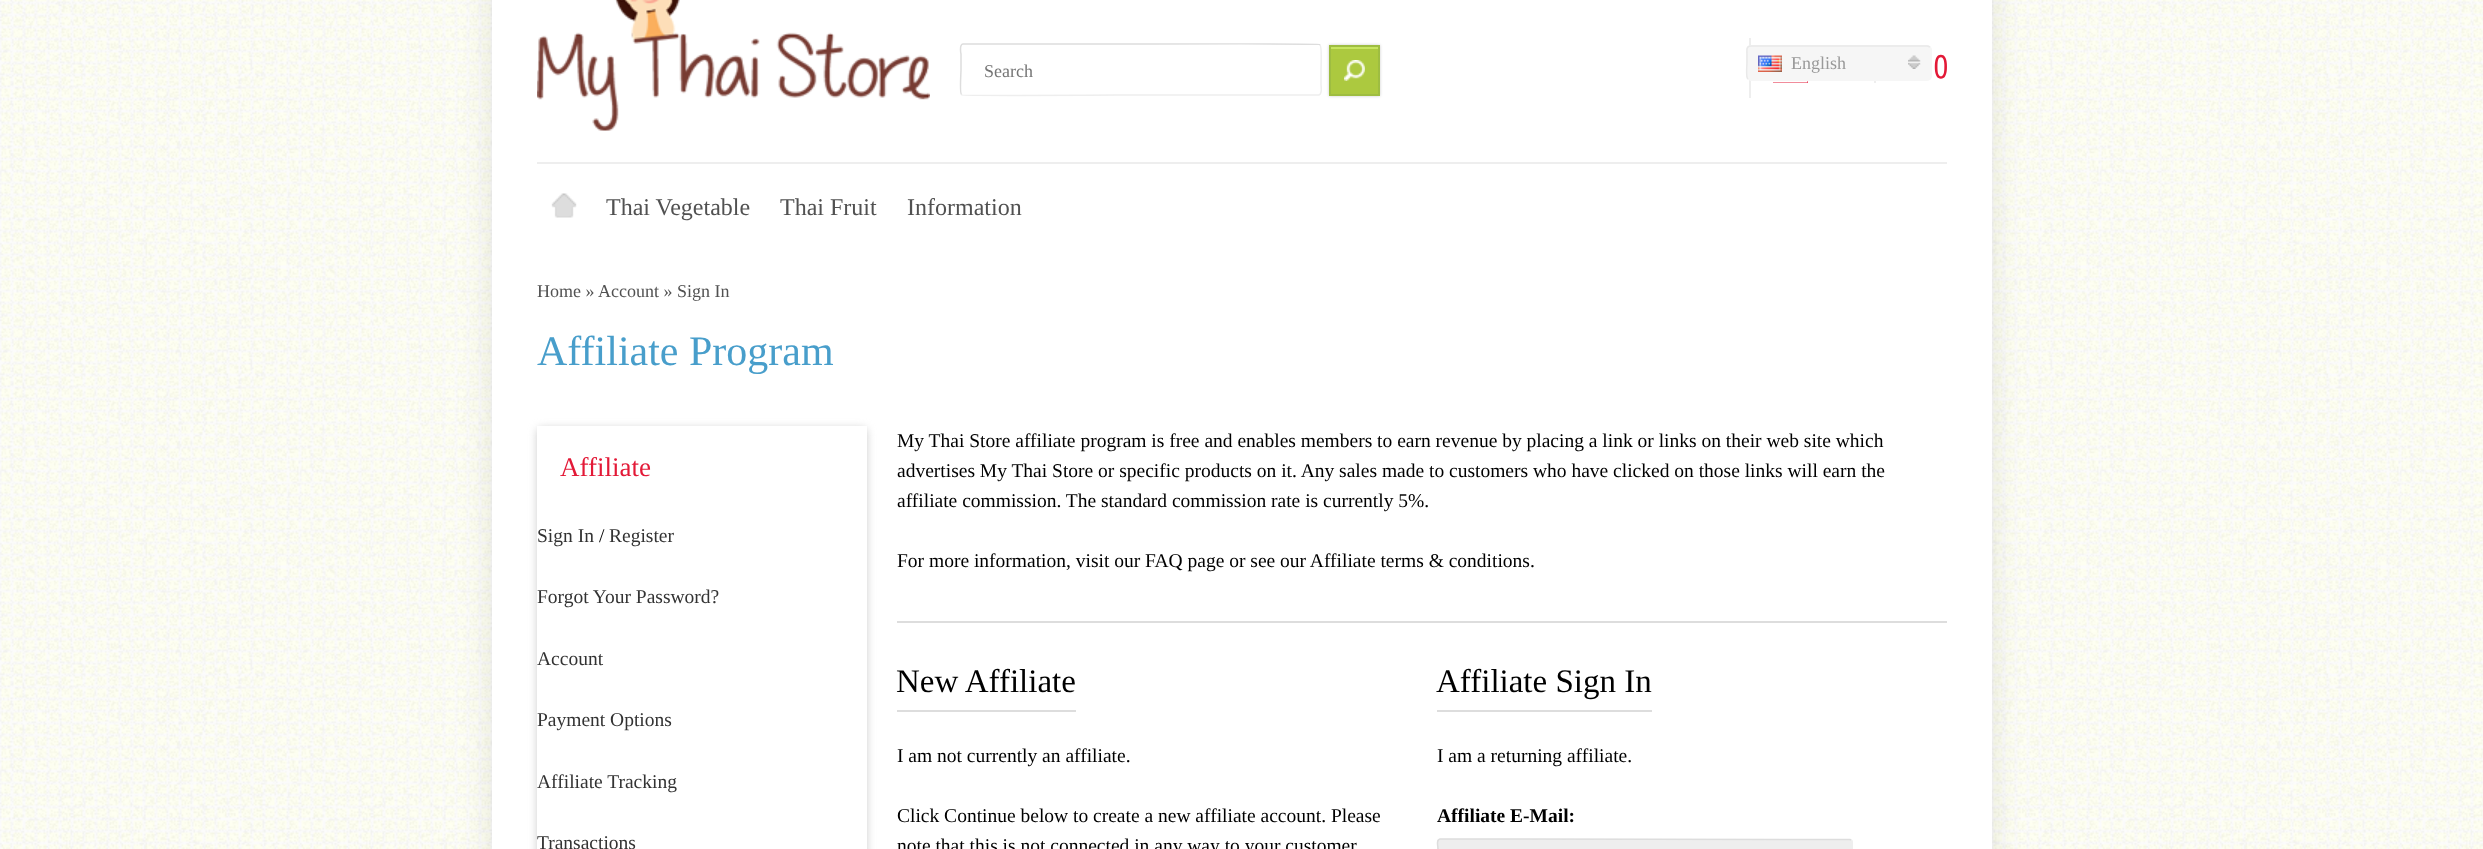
<svg xmlns="http://www.w3.org/2000/svg" width="2483" height="849" viewBox="0 0 2483 849">
  <style>
    .t1 { font: 18px Liberation Serif; fill: #757575; }
    .t2 { font: 18px Liberation Serif; fill: #999; }
    .t3 { font: 500 32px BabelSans; fill: #e31937; }
    .t4 { font: 24px Liberation Serif; fill: #515151; }
    .t5 { font: 18px Liberation Serif; fill: #515151; }
    .t6 { font: 42px Liberation Serif; fill: #489ecb; }
    .t7 { font: 27px Liberation Serif; fill: #e31937; }
    .t8 { font: 19.5px Liberation Serif; fill: #333; }
    .t9 { font: 19.5px Liberation Serif; fill: #000; }
    .t10 { font: 33px Liberation Serif; fill: #000; }
    .t11 { font: bold 19.5px Liberation Serif; fill: #000; }
  </style>
  <rect width="100%" height="100%" fill="#fff"/>
  <image x="0" y="0" width="2483" height="849" href="images/1.png"/>
  <rect x="492" y="-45" width="1500" height="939" fill="#0000001a" filter="blur(15px)"/>
  <rect x="492" y="0" width="1500" height="849" fill="#fff"/>
  <image x="537" y="0" width="393" height="131" href="images/2.png"/>
  <path d="M1320 45C1322 46.5 1321 66.5 1321 70V85C1321 85.5 1322.5 95 1318.5 95H1141C1127 95 963.5 96 962 95L961.5 94.5" fill="none" stroke="#eee" stroke-width="1.5"/>
  <path d="M961.5 94.5C959.5 93 961 73 961 70V54C961 54 959 44.5 963 44H1141C1154.5 44 1318 43.5 1319.5 44.5L1320 45" fill="none" stroke="#ddd" stroke-width="1.5"/>
  <text x="984" y="77" class="t1">Search</text>
  <rect x="1329" y="45" width="51" height="51" fill="#00000033" filter="blur(1.5px)"/>
  <rect x="1331" y="49" width="47" height="45" fill="#acc93f"/>
  <image x="1344" y="60" width="21" height="21" href="images/3.png"/>
  <rect x="1331" y="47" width="48" height="2" fill="#c7e561"/>
  <rect x="1330" y="46" width="49" height="49" fill="none" stroke="#9ebd41" stroke-width="2"/>
  <rect x="1749" y="38" width="2" height="60" fill="#eee"/>
  <rect x="1746" y="45" width="186" height="36" rx="5" fill="#f6f6f6"/>
  <image x="1908" y="55" width="13" height="14" href="images/4.png"/>
  <path d="M1748 79C1745.5 77 1747 66 1747 63V54C1747 51 1746 46 1750.5 46H1927.5L1930 47" fill="none" stroke="#e9e9e9" stroke-width="1.5"/>
  <image x="1758" y="55" width="24" height="17" href="images/5.png"/>
  <text x="1791" y="69" class="t2">English</text>
  <text x="1934" y="78" class="t3">0</text>
  <rect x="1773" y="81" width="35" height="2" fill="#e31937"/>
  <image x="1773" y="81" width="35" height="2" href="images/6.png"/>
  <rect x="1874" y="81" width="2" height="2" fill="#eee"/>
  <rect x="537" y="162" width="1410" height="2" fill="#eee"/>
  <rect x="551" y="193" width="26" height="25" fill="#ddd"/>
  <image x="537" y="183" width="54" height="48" href="images/7.png"/>
  <text x="606" y="215" class="t4">Thai Vegetable</text>
  <text x="780" y="215" class="t4">Thai Fruit</text>
  <text x="907" y="215" class="t4">Information</text>
  <text x="537" y="297" class="t5">Home »</text>
  <text x="598" y="297" class="t5">Account » Sign In</text>
  <text x="537" y="365" class="t6">Affiliate Program</text>
  <rect x="537" y="428" width="330" height="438" rx="5" fill="#ccc" filter="blur(4px)"/>
  <rect x="537" y="426" width="330" height="423" fill="#fff"/>
  <text x="560" y="476" class="t7">Affiliate</text>
  <text x="537" y="542" class="t8">Sign In</text>
  <text x="599" y="542" class="t9">/</text>
  <text x="609" y="542" class="t8">Register</text>
  <text x="537" y="603" class="t8">Forgot Your Password?</text>
  <text x="537" y="665" class="t8">Account</text>
  <text x="537" y="726" class="t8">Payment Options</text>
  <text x="537" y="788" class="t8">Affiliate Tracking</text>
  <text x="537" y="849" class="t8">Transactions</text>
  <text x="897" y="447" class="t9">My Thai Store affiliate program is free and enables members to earn revenue by placing a link or links on their web site which</text>
  <text x="897" y="477" class="t9">advertises My Thai Store or specific products on it. Any sales made to customers who have clicked on those links will earn the</text>
  <text x="897" y="507" class="t9">affiliate commission. The standard commission rate is currently 5%.</text>
  <text x="897" y="567" class="t9">For more information, visit our FAQ page or see our Affiliate terms &amp; conditions.</text>
  <rect x="897" y="621" width="1050" height="2" fill="#ddd"/>
  <rect x="897" y="710" width="179" height="2" fill="#ddd"/>
  <text x="896" y="692" class="t10">New Affiliate</text>
  <text x="897" y="762" class="t9">I am not currently an affiliate.</text>
  <text x="897" y="822" class="t9">Click Continue below to create a new affiliate account. Please</text>
  <text x="897" y="852" class="t9">note that this is not connected in any way to your customer</text>
  <rect x="1437" y="710" width="215" height="2" fill="#ddd"/>
  <text x="1436" y="692" class="t10">Affiliate Sign In</text>
  <text x="1437" y="762" class="t9">I am a returning affiliate.</text>
  <text x="1437" y="822" class="t11">Affiliate E-Mail:</text>
  <rect x="1437" y="839" width="416" height="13" rx="3" fill="#eee"/>
  <path d="M1438.5 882C1436.5 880.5 1438 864 1438 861V848C1438 847 1436 839.5 1440 839L1850 839.5L1851 840" fill="none" stroke="#ddd" stroke-width="1.5"/>
</svg>
